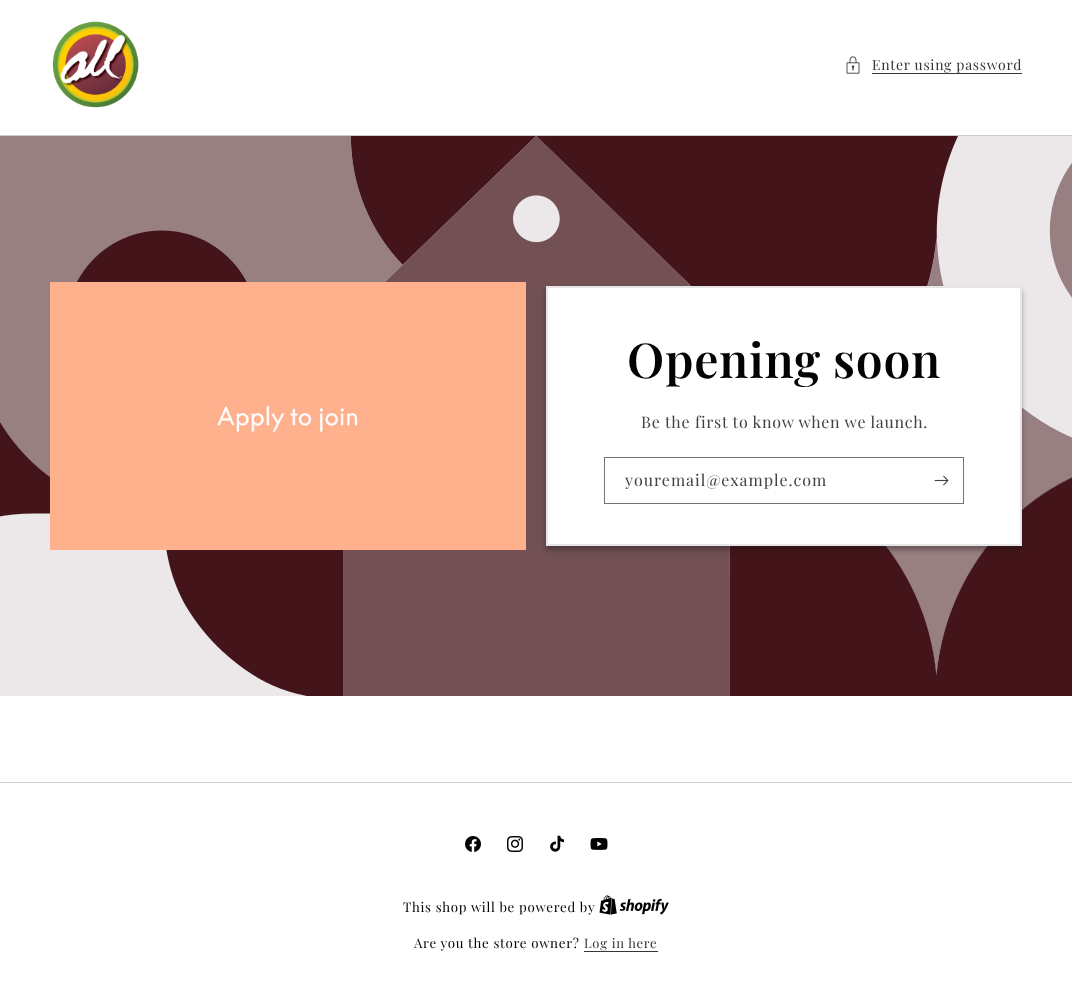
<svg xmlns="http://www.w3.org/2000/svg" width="1072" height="995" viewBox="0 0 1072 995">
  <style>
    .t1 { font: 14px Playfair Display; letter-spacing: 0.7px; fill: #363636; }
    .t2 { font: 600 48px Playfair Display; letter-spacing: 0.75px; fill: #030303; }
    .t3 { font: 16px Playfair Display; letter-spacing: 0.7px; fill: #424242; }
    .t4 { font: 16px Playfair Display; letter-spacing: 1px; fill: #424242; }
    .t5 { font: 13.3px Playfair Display; letter-spacing: 0.7px; fill: #030303; }
    .t6 { font: 13px Playfair Display; letter-spacing: 0.7px; fill: #363636; }
  </style>
  <defs>
    <clipPath id="clip1"><path d="M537 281H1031V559H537ZM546 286H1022V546H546Z" clip-rule="evenodd"/></clipPath>
  </defs>
  <rect width="100%" height="100%" fill="#fff"/>
  <image x="52" y="21" width="87" height="87" href="images/1.png"/>
  <image x="846" y="56" width="14" height="18" href="images/2.png"/>
  <text x="872" y="70" class="t1">Enter using password</text>
  <rect x="872" y="73" width="150" height="1" fill="#363636"/>
  <rect x="0" y="135" width="1072" height="1" fill="#cdcdcd"/>
  <image x="0" y="136" width="1072" height="560" href="images/3.png"/>
  <image x="50" y="282" width="476" height="268" href="images/4.png"/>
  <rect x="547" y="287" width="474" height="258" fill="#fff" stroke="#e6e6e6" stroke-width="2"/>
  <g clip-path="url(#clip1)">
    <rect x="546" y="290" width="476" height="260" fill="#12121259" filter="blur(2.5px)"/>
  </g>
  <text x="627" y="378" class="t2">Opening soon</text>
  <text x="641" y="428" class="t3">Be the first to know when we launch.</text>
  <rect x="604.5" y="457.5" width="359" height="46" fill="none" stroke="#747474"/>
  <text x="625" y="486" class="t4">youremail@example.com</text>
  <image x="934" y="475" width="15" height="11" href="images/5.png"/>
  <rect x="0" y="782" width="1072" height="1" fill="#cdcdcd"/>
  <image x="465" y="836" width="16" height="16" href="images/6.png"/>
  <image x="507" y="836" width="16" height="16" href="images/7.png"/>
  <image x="550" y="835" width="15" height="17" href="images/8.png"/>
  <image x="590" y="838" width="18" height="12" href="images/9.png"/>
  <text x="403" y="912" class="t5">This shop will be powered by</text>
  <image x="599" y="895" width="70" height="20" href="images/10.png"/>
  <text x="414" y="948" class="t5">Are you the store owner?</text>
  <text x="584" y="948" class="t6">Log in here</text>
  <rect x="584" y="951" width="74" height="1" fill="#363636"/>
</svg>
